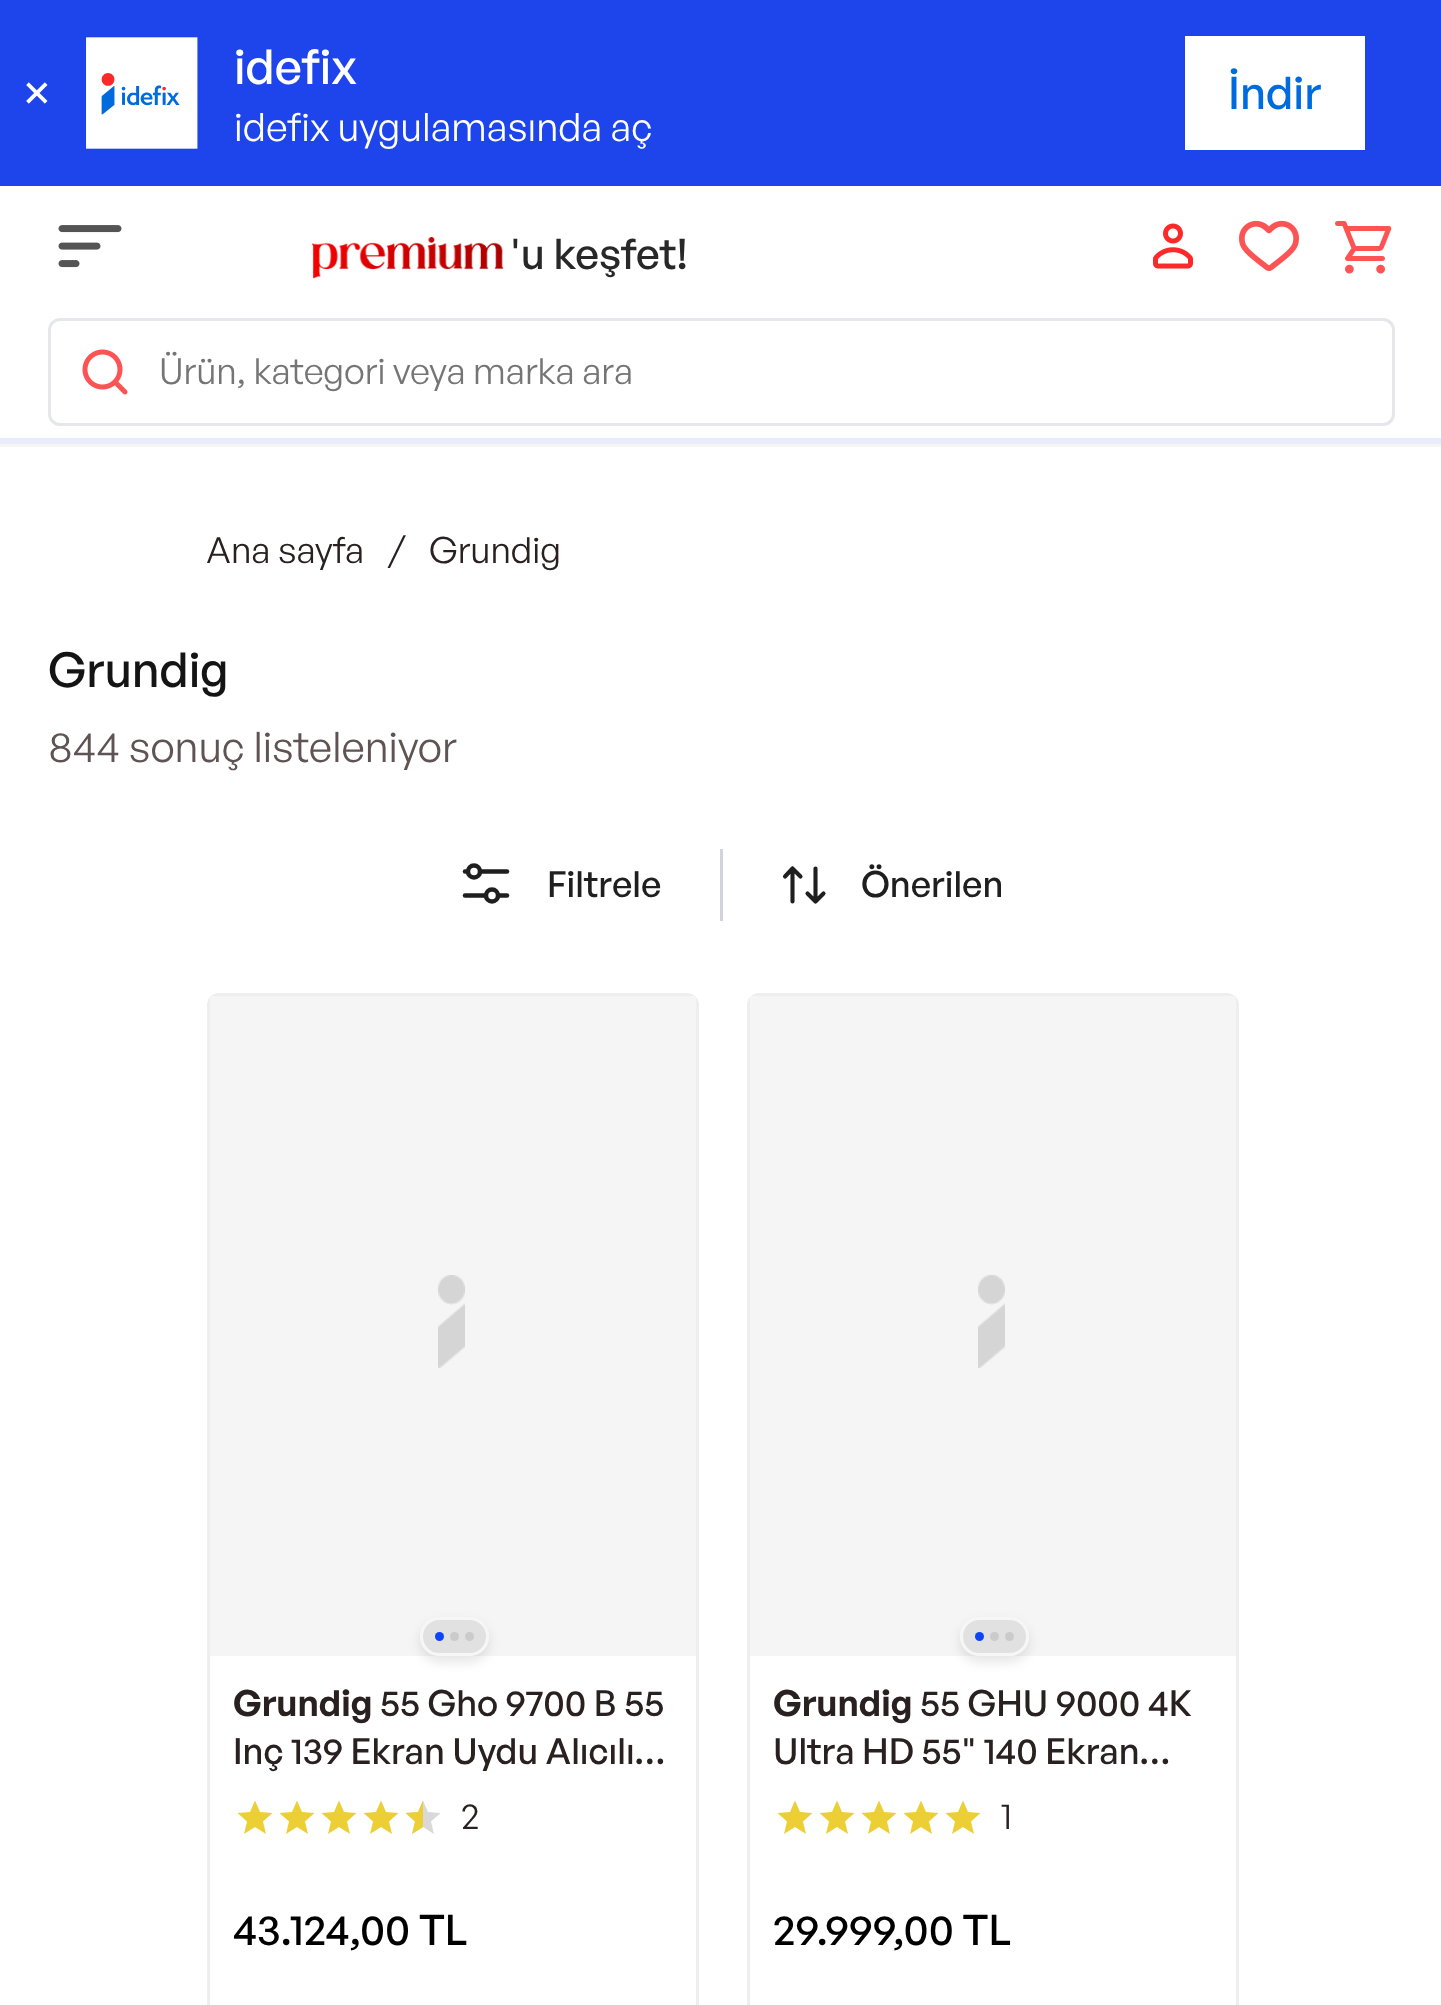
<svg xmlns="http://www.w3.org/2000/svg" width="1441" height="2005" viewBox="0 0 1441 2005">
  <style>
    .t1 { font: 500 48px General Sans; fill: #fff; }
    .t2 { font: 39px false; fill: #fff; }
    .t3 { font: 500 45px General Sans; fill: #006bdc; }
    .t4 { font: 500 42px General Sans; fill: #282828; }
    .t5 { font: 36px false; fill: #757575; }
    .t6 { font: 36px false; fill: #292020; }
    .t7 { font: 500 48px General Sans; fill: #141414; }
    .t8 { font: 42px false; fill: #5f5353; }
    .t9 { font: 500 36px General Sans; fill: #1f1f1f; }
    .t10 { font: 600 36px General Sans; fill: #292020; }
    .t11 { font: 500 36px General Sans; fill: #292020; }
    .t12 { font: 500 42px General Sans; fill: #000; }
  </style>
  <defs>
    <clipPath id="clip1"><path d="M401 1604H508V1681H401ZM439.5 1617H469.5C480.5 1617 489 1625.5 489 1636.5C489 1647.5 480.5 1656 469.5 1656H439.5C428.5 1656 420 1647.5 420 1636.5C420 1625.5 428.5 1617 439.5 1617Z" clip-rule="evenodd"/></clipPath>
    <clipPath id="clip2"><rect x="234" y="1680" width="438" height="96"/></clipPath>
    <clipPath id="clip3"><rect x="402" y="1797" width="21" height="42"/></clipPath>
    <clipPath id="clip4"><path d="M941 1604H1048V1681H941ZM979.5 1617H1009.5C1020.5 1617 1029 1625.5 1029 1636.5C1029 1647.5 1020.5 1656 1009.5 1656H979.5C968.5 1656 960 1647.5 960 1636.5C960 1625.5 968.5 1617 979.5 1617Z" clip-rule="evenodd"/></clipPath>
    <clipPath id="clip5"><rect x="774" y="1680" width="438" height="96"/></clipPath>
  </defs>
  <rect width="100%" height="100%" fill="#fff"/>
  <rect x="0" y="0" width="1441" height="186" fill="#1e44ec"/>
  <image x="26" y="82" width="22" height="22" href="images/1.png"/>
  <image x="85" y="36" width="114" height="114" href="images/2.png"/>
  <text x="234" y="84" class="t1">idefix</text>
  <text x="234" y="141" class="t2">idefix uygulamasında aç</text>
  <rect x="1185" y="36" width="180" height="114" fill="#fff"/>
  <text x="1228" y="109" class="t3">İndir</text>
  <rect x="0" y="444" width="1441" height="3" fill="#f5f5f5"/>
  <image x="58" y="225" width="64" height="43" href="images/3.png"/>
  <image x="312" y="237" width="192" height="42" href="images/4.png"/>
  <text x="510" y="269" class="t4">'u keşfet!</text>
  <image x="1153" y="223" width="40" height="46" href="images/5.png"/>
  <image x="1239" y="220" width="60" height="51" href="images/6.png"/>
  <image x="1335" y="221" width="57" height="53" href="images/7.png"/>
  <rect x="49.5" y="319.5" width="1344" height="105" rx="10.5" fill="none" stroke="#e5e7eb" stroke-width="3"/>
  <image x="82" y="349" width="46" height="46" href="images/8.png"/>
  <text x="159" y="384" class="t5">Ürün, kategori veya marka ara</text>
  <rect x="0" y="438" width="1441" height="6" fill="#e7ecfe"/>
  <text x="206" y="563" class="t6">Ana sayfa</text>
  <text x="388" y="561" class="t6">/</text>
  <text x="429" y="563" class="t6">Grundig</text>
  <text x="48" y="687" class="t7">Grundig</text>
  <text x="48" y="762" class="t8">844 sonuç listeleniyor</text>
  <path d="M465 871.5H507" fill="none" stroke="#1f1f1f" stroke-width="4.5" stroke-linecap="round"/>
  <circle cx="474" cy="871.5" r="6" fill="#fff" stroke="#1f1f1f" stroke-width="4.5"/>
  <path d="M465 895.5H507" fill="none" stroke="#1f1f1f" stroke-width="4.5" stroke-linecap="round"/>
  <circle cx="492" cy="895.5" r="6" fill="#fff" stroke="#1f1f1f" stroke-width="4.5"/>
  <text x="547" y="897" class="t9">Filtrele</text>
  <rect x="720" y="849" width="3" height="72" fill="#d1d5db"/>
  <path d="M807.5 893.5L815.5 901.5M815.5 901.5L823.5 893.5M815.5 901.5V868.5M800.5 876.5L792.5 868.5M792.5 868.5L785 876.5M792.5 868.5V901.5" fill="none" stroke="#1f1f1f" stroke-width="4.1" stroke-linecap="round" stroke-linejoin="round"/>
  <text x="861" y="897" class="t9">Önerilen</text>
  <rect x="208.5" y="994.5" width="489" height="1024" rx="10.5" fill="none" stroke="#eee" stroke-width="3"/>
  <rect x="210" y="996" width="486" height="660" fill="#f5f5f5"/>
  <image x="438" y="1275" width="27" height="93" href="images/9.png"/>
  <g clip-path="url(#clip1)">
    <rect x="420" y="1623" width="69" height="39" rx="19.5" fill="#0000001a" filter="blur(6px)"/>
  </g>
  <rect x="421.5" y="1618.5" width="66" height="36" rx="18" fill="#00000014" stroke="#f6f6f6" stroke-width="3"/>
  <circle cx="439.5" cy="1636.5" r="4.5" fill="#0c45f5"/>
  <circle cx="454.5" cy="1636.5" r="4.5" fill="#cbcbcb"/>
  <circle cx="469.5" cy="1636.5" r="4.5" fill="#cbcbcb"/>
  <g clip-path="url(#clip2)">
    <text x="233" y="1716" class="t10">Grundig</text>
  </g>
  <text x="380" y="1716" class="t11">55 Gho 9700 B 55</text>
  <text x="233" y="1764" class="t11">Inç 139 Ekran Uydu Alıcılı…</text>
  <path d="M255 1827L266 1834L263 1821.5L272.5 1813L260 1812L255 1800.5L250 1812L237.5 1813L247 1821.5L244 1834Z" fill="#eccf34"/>
  <path d="M297 1827L308 1834L305 1821.5L314.5 1813L302 1812L297 1800.5L292 1812L279.5 1813L289 1821.5L286 1834Z" fill="#eccf34"/>
  <path d="M339 1827L350 1834L347 1821.5L356.5 1813L344 1812L339 1800.5L334 1812L321.5 1813L331 1821.5L328 1834Z" fill="#eccf34"/>
  <path d="M381 1827L392 1834L389 1821.5L398.5 1813L386 1812L381 1800.5L376 1812L363.5 1813L373 1821.5L370 1834Z" fill="#eccf34"/>
  <path d="M423 1827L434 1834L431 1821.5L440.5 1813L428 1812L423 1800.5L418 1812L405.5 1813L415 1821.5L412 1834Z" fill="#d9d9d9"/>
  <g clip-path="url(#clip3)">
    <path d="M423 1827L434 1834L431 1821.5L440.5 1813L428 1812L423 1800.5L418 1812L405.5 1813L415 1821.5L412 1834Z" fill="#eccf34"/>
  </g>
  <text x="461" y="1829" class="t6">2</text>
  <text x="233" y="1945" class="t12">43.124,00 TL</text>
  <rect x="748.5" y="994.5" width="489" height="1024" rx="10.5" fill="none" stroke="#eee" stroke-width="3"/>
  <rect x="750" y="996" width="486" height="660" fill="#f5f5f5"/>
  <image x="978" y="1275" width="27" height="93" href="images/9.png"/>
  <g clip-path="url(#clip4)">
    <rect x="960" y="1623" width="69" height="39" rx="19.5" fill="#0000001a" filter="blur(6px)"/>
  </g>
  <rect x="961.5" y="1618.5" width="66" height="36" rx="18" fill="#00000014" stroke="#f6f6f6" stroke-width="3"/>
  <circle cx="979.5" cy="1636.5" r="4.5" fill="#0c45f5"/>
  <circle cx="994.5" cy="1636.5" r="4.5" fill="#cbcbcb"/>
  <circle cx="1009.5" cy="1636.5" r="4.5" fill="#cbcbcb"/>
  <g clip-path="url(#clip5)">
    <text x="773" y="1716" class="t10">Grundig</text>
  </g>
  <text x="920" y="1716" class="t11">55 GHU 9000 4K</text>
  <text x="773" y="1764" class="t11">Ultra HD 55" 140 Ekran…</text>
  <path d="M795 1827L806 1834L803 1821.5L812.5 1813L800 1812L795 1800.5L790 1812L777.5 1813L787 1821.5L784 1834Z" fill="#eccf34"/>
  <path d="M837 1827L848 1834L845 1821.5L854.5 1813L842 1812L837 1800.5L832 1812L819.5 1813L829 1821.5L826 1834Z" fill="#eccf34"/>
  <path d="M879 1827L890 1834L887 1821.5L896.5 1813L884 1812L879 1800.5L874 1812L861.5 1813L871 1821.5L868 1834Z" fill="#eccf34"/>
  <path d="M921 1827L932 1834L929 1821.5L938.5 1813L926 1812L921 1800.5L916 1812L903.5 1813L913 1821.5L910 1834Z" fill="#eccf34"/>
  <path d="M963 1827L974 1834L971 1821.5L980.5 1813L968 1812L963 1800.5L958 1812L945.5 1813L955 1821.5L952 1834Z" fill="#eccf34"/>
  <text x="1001" y="1829" class="t6">1</text>
  <text x="773" y="1945" class="t12">29.999,00 TL</text>
</svg>
